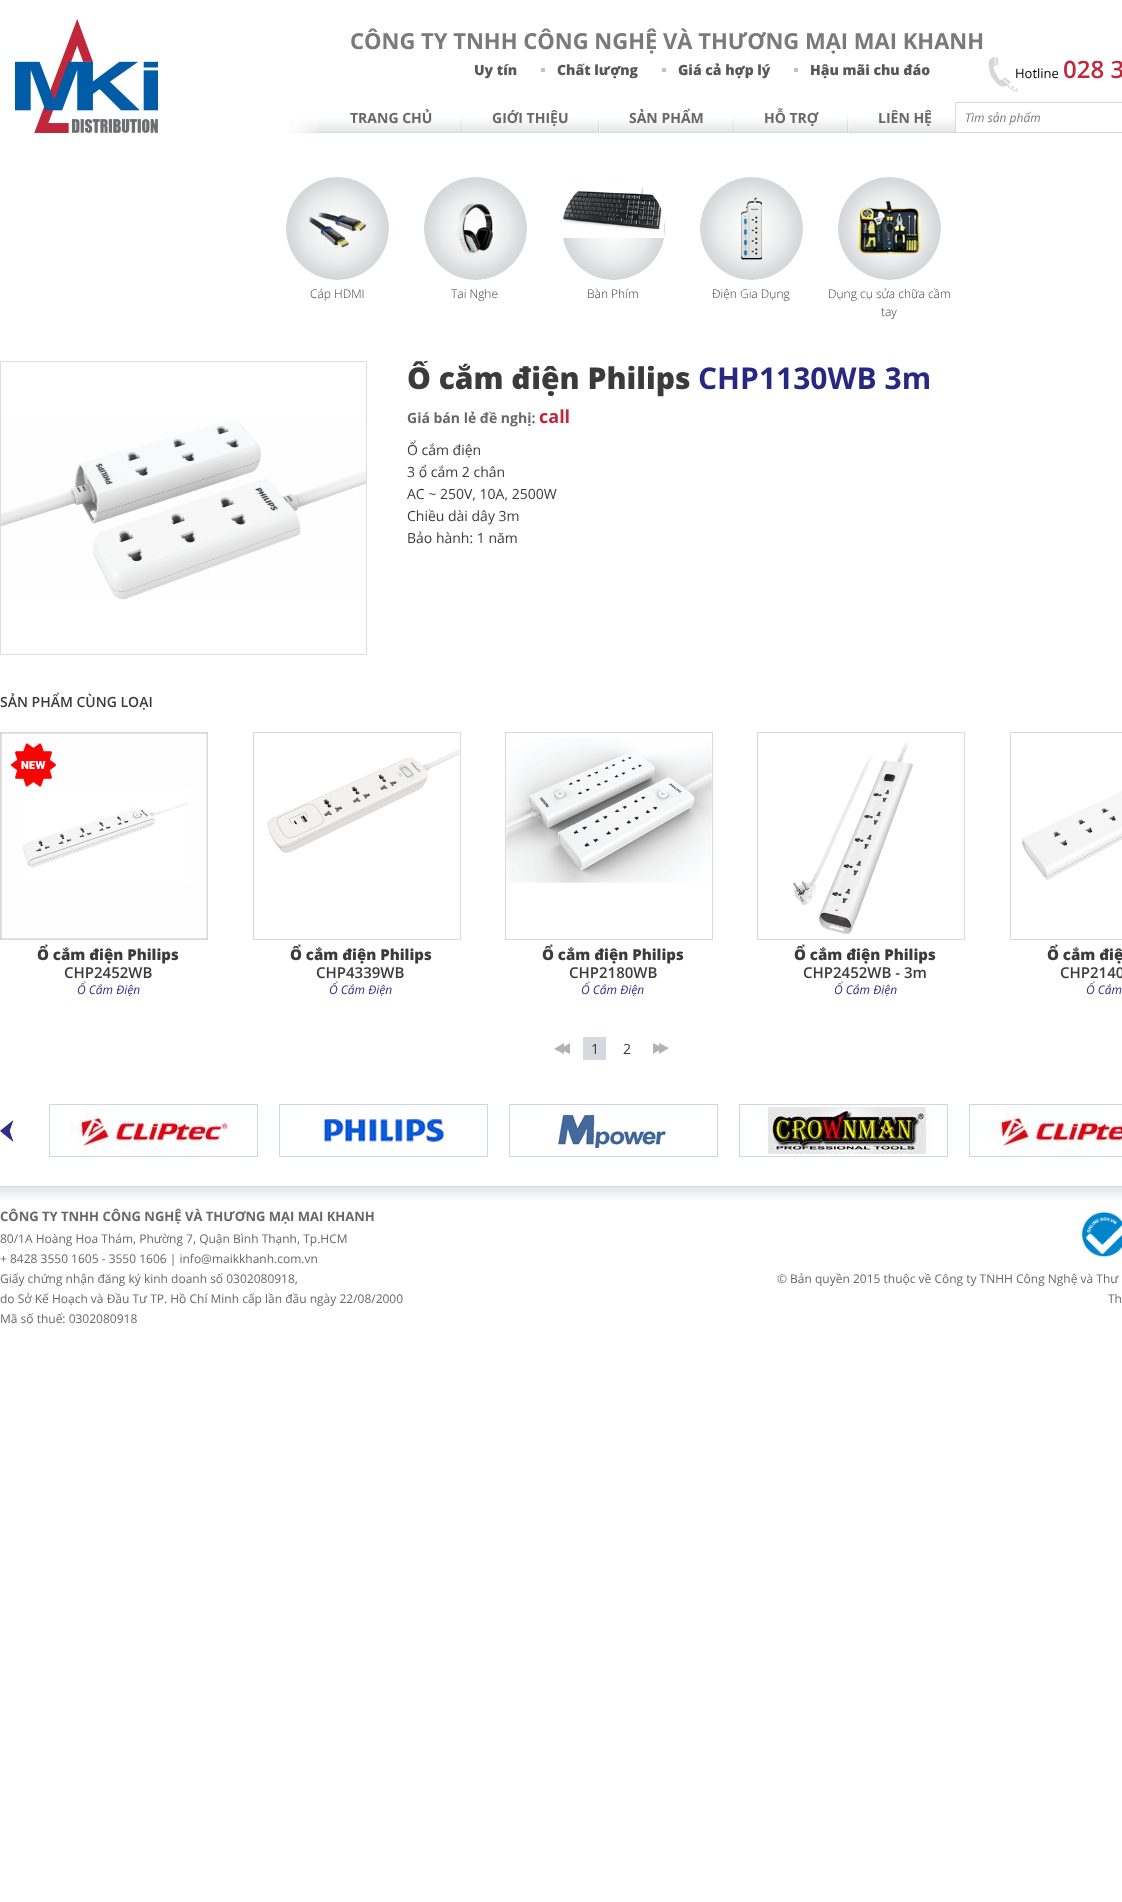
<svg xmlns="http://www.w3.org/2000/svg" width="1122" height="1902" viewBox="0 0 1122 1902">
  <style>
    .t1 { font: bold 22px Open Sans; fill: #7a7a7a; }
    .t2 { font: 800 14px Open Sans; fill: #575757; }
    .t3 { font: 13px Open Sans; fill: #000; }
    .t4 { font: 600 24px Open Sans; fill: #c0273b; }
    .t5 { font: bold 14px Open Sans; fill: #686868; }
    .t6 { font: italic 12px Open Sans; fill: #7a7a7a; }
    .t7 { font: 300 12px Open Sans; fill: #3b3b3b; }
    .t8 { font: 800 30px Open Sans; fill: #3b3b3b; }
    .t9 { font: bold 30px Open Sans; fill: #282881; }
    .t10 { font: bold 18px Open Sans; fill: #c0273b; }
    .t11 { font: 14px Open Sans; fill: #3b3b3b; }
    .t12 { font: 600 14px Open Sans; fill: #3b3b3b; }
    .t13 { font: 800 15px Open Sans; fill: #3b3b3b; }
    .t14 { font: 600 15px Open Sans; fill: #3b3b3b; }
    .t15 { font: italic 12px Open Sans; fill: #2f2f85; }
    .t16 { font: bold 13px Open Sans; fill: #686868; }
    .t17 { font: 12px Open Sans; fill: #686868; }
  </style>
  <defs>
    <clipPath id="clip1"><rect x="367" y="361" width="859" height="188"/></clipPath>
  </defs>
  <rect width="100%" height="100%" fill="#fff"/>
  <image x="15" y="19" width="143" height="114" href="images/1.png"/>
  <text x="350" y="49" class="t1">CÔNG TY TNHH CÔNG NGHỆ VÀ THƯƠNG MẠI MAI KHANH</text>
  <text x="474" y="75" class="t2">Uy tín</text>
  <rect x="541" y="68" width="4" height="4" fill="#c2c2c2"/>
  <text x="557" y="75" class="t2">Chất lượng</text>
  <rect x="662" y="68" width="4" height="4" fill="#c2c2c2"/>
  <text x="678" y="75" class="t2">Giá cả hợp lý</text>
  <rect x="794" y="68" width="4" height="4" fill="#c2c2c2"/>
  <text x="810" y="75" class="t2">Hậu mãi chu đáo</text>
  <image x="988" y="57" width="30" height="35" href="images/2.png"/>
  <text x="1015" y="78" class="t3">Hotline</text>
  <text x="1063" y="78" class="t4">028 3</text>
  <image x="319" y="119" width="636" height="14" href="images/3.png"/>
  <image x="289" y="119" width="30" height="14" href="images/4.png"/>
  <image x="461" y="115" width="2" height="18" href="images/5.png"/>
  <text x="350" y="123" class="t5">TRANG CHỦ</text>
  <image x="598" y="115" width="2" height="18" href="images/5.png"/>
  <text x="492" y="123" class="t5">GIỚI THIỆU</text>
  <image x="733" y="115" width="2" height="18" href="images/5.png"/>
  <text x="629" y="123" class="t5">SẢN PHẨM</text>
  <image x="847" y="115" width="2" height="18" href="images/5.png"/>
  <text x="764" y="123" class="t5">HỖ TRỢ</text>
  <text x="878" y="123" class="t5">LIÊN HỆ</text>
  <rect x="955.5" y="102.5" width="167" height="30" fill="none" stroke="#d9d9d9"/>
  <text x="965" y="122" class="t6">Tìm sản phẩm</text>
  <image x="286" y="177" width="103" height="103" href="images/6.png"/>
  <image x="309" y="209" width="58" height="39" href="images/8.png"/>
  <image x="286" y="177" width="103" height="103" href="images/7.png"/>
  <text x="310" y="298" class="t7">Cáp HDMI</text>
  <image x="424" y="177" width="103" height="103" href="images/6.png"/>
  <image x="457" y="203" width="37" height="52" href="images/10.png"/>
  <image x="424" y="177" width="103" height="103" href="images/9.png"/>
  <text x="451" y="298" class="t7">Tai Nghe</text>
  <image x="562" y="177" width="103" height="103" href="images/6.png"/>
  <image x="562" y="177" width="102" height="61" href="images/11.png"/>
  <image x="562" y="190" width="103" height="90" href="images/12.png"/>
  <text x="587" y="298" class="t7">Bàn Phím</text>
  <image x="700" y="177" width="103" height="103" href="images/6.png"/>
  <image x="741" y="197" width="21" height="63" href="images/14.png"/>
  <image x="700" y="177" width="103" height="103" href="images/13.png"/>
  <text x="712" y="298" class="t7">Điện Gia Dụng</text>
  <image x="838" y="177" width="103" height="103" href="images/6.png"/>
  <image x="858" y="201" width="63" height="53" href="images/16.png"/>
  <image x="838" y="177" width="103" height="103" href="images/15.png"/>
  <text x="828" y="298" class="t7">Dụng cụ sửa chữa cầm</text>
  <text x="881" y="316" class="t7">tay</text>
  <rect x="0.5" y="361.5" width="366" height="293" fill="none" stroke="#ddd"/>
  <image x="1" y="420" width="365" height="180" href="images/17.png"/>
  <g clip-path="url(#clip1)">
    <text x="407" y="389" class="t8">Ổ cắm điện Philips</text>
  </g>
  <text x="698" y="389" class="t9">CHP1130WB 3m</text>
  <text x="407" y="423" class="t5">Giá bán lẻ đề nghị:</text>
  <text x="539" y="423" class="t10">call</text>
  <text x="407" y="455" class="t11">Ổ cắm điện</text>
  <text x="407" y="477" class="t11">3 ổ cắm 2 chân</text>
  <text x="407" y="499" class="t11">AC ~ 250V, 10A, 2500W</text>
  <text x="407" y="521" class="t11">Chiều dài dây 3m</text>
  <text x="407" y="543" class="t11">Bảo hành: 1 năm</text>
  <text x="0" y="707" class="t12">SẢN PHẨM CÙNG LOẠI</text>
  <rect x="0.5" y="732.5" width="207" height="207" fill="none" stroke="#d9d9d9"/>
  <image x="1" y="733" width="206" height="206" href="images/18.png"/>
  <image x="11" y="743" width="45" height="44" href="images/19.png"/>
  <text x="37" y="960" class="t13">Ổ cắm điện Philips</text>
  <text x="64" y="978" class="t14">CHP2452WB</text>
  <text x="77" y="994" class="t15">Ổ Cắm Điện</text>
  <rect x="253.5" y="732.5" width="207" height="207" fill="none" stroke="#d9d9d9"/>
  <image x="267" y="749" width="193" height="104" href="images/20.png"/>
  <text x="290" y="960" class="t13">Ổ cắm điện Philips</text>
  <text x="316" y="978" class="t14">CHP4339WB</text>
  <text x="329" y="994" class="t15">Ổ Cắm Điện</text>
  <rect x="505.5" y="732.5" width="207" height="207" fill="none" stroke="#d9d9d9"/>
  <image x="506" y="737" width="206" height="146" href="images/21.png"/>
  <text x="542" y="960" class="t13">Ổ cắm điện Philips</text>
  <text x="569" y="978" class="t14">CHP2180WB</text>
  <text x="581" y="994" class="t15">Ổ Cắm Điện</text>
  <rect x="757.5" y="732.5" width="207" height="207" fill="none" stroke="#d9d9d9"/>
  <image x="793" y="742" width="120" height="192" href="images/22.png"/>
  <text x="794" y="960" class="t13">Ổ cắm điện Philips</text>
  <text x="803" y="978" class="t14">CHP2452WB - 3m</text>
  <text x="834" y="994" class="t15">Ổ Cắm Điện</text>
  <rect x="1010.5" y="732.5" width="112" height="207" fill="none" stroke="#d9d9d9"/>
  <image x="1021" y="791" width="101" height="89" href="images/23.png"/>
  <text x="1047" y="960" class="t13">Ổ cắm điệ</text>
  <text x="1060" y="978" class="t14">CHP2140</text>
  <text x="1086" y="994" class="t15">Ổ Cắm</text>
  <image x="554" y="1043" width="16" height="11" href="images/24.png"/>
  <rect x="583" y="1037" width="23" height="23" fill="#d6d9e0"/>
  <text x="591" y="1054" class="t11">1</text>
  <text x="623" y="1054" class="t11">2</text>
  <image x="653" y="1043" width="16" height="11" href="images/25.png"/>
  <image x="0" y="1120" width="14" height="22" href="images/26.png"/>
  <rect x="49.5" y="1104.5" width="208" height="52" fill="none" stroke="#cdd7e0"/>
  <image x="69" y="1105" width="160" height="49" href="images/27.png"/>
  <rect x="279.5" y="1104.5" width="208" height="52" fill="none" stroke="#cdd7e0"/>
  <image x="324" y="1119" width="121" height="23" href="images/28.png"/>
  <rect x="509.5" y="1104.5" width="208" height="52" fill="none" stroke="#cdd7e0"/>
  <image x="558" y="1115" width="108" height="33" href="images/29.png"/>
  <rect x="739.5" y="1104.5" width="208" height="52" fill="none" stroke="#cdd7e0"/>
  <image x="765" y="1105" width="167" height="50" href="images/30.png"/>
  <rect x="969.5" y="1104.5" width="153" height="52" fill="none" stroke="#cdd7e0"/>
  <image x="989" y="1105" width="133" height="49" href="images/31.png"/>
  <image x="0" y="1186" width="1122" height="14" href="images/32.png"/>
  <text x="0" y="1221" class="t16">CÔNG TY TNHH CÔNG NGHỆ VÀ THƯƠNG MẠI MAI KHANH</text>
  <text x="0" y="1243" class="t17">80/1A Hoàng Hoa Thám, Phường 7, Quận Bình Thạnh, Tp.HCM</text>
  <text x="0" y="1263" class="t17">+ 8428 3550 1605 - 3550 1606 | info@maikkhanh.com.vn</text>
  <text x="0" y="1283" class="t17">Giấy chứng nhận đăng ký kinh doanh số 0302080918,</text>
  <text x="0" y="1303" class="t17">do Sở Kế Hoạch và Đầu Tư TP. Hồ Chí Minh cấp lần đầu ngày 22/08/2000</text>
  <text x="0" y="1323" class="t17">Mã số thuế: 0302080918</text>
  <image x="1082" y="1212" width="40" height="45" href="images/33.png"/>
  <text x="777" y="1283" class="t17">© Bản quyền 2015 thuộc về Công ty TNHH Công Nghệ và Thư</text>
  <text x="1108" y="1303" class="t17">Th</text>
</svg>
